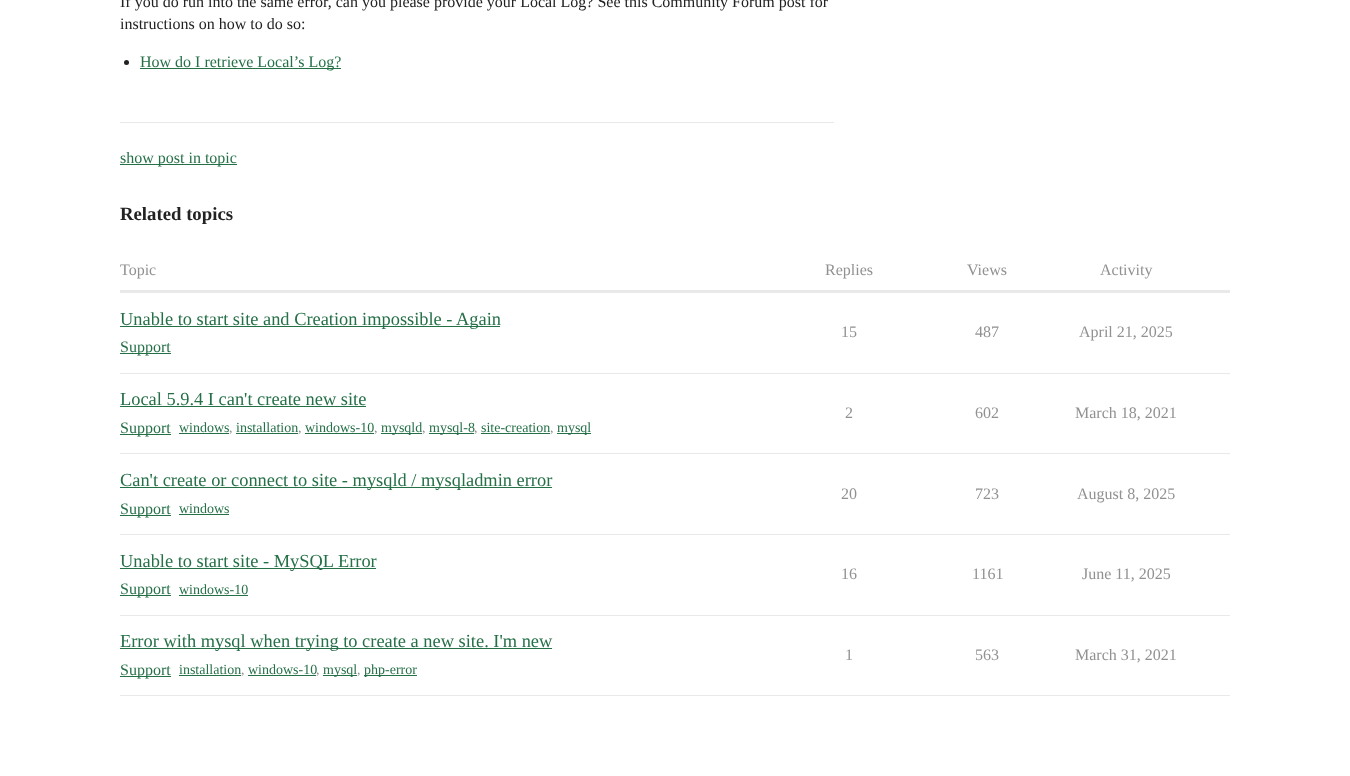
<svg xmlns="http://www.w3.org/2000/svg" width="1350" height="776" viewBox="0 0 1350 776">
  <style>
    .t1 { font: 16px Liberation Serif; fill: #222; }
    .t2 { font: 16px Liberation Serif; fill: #267048; }
    .t3 { font: bold 18.75px Liberation Serif; fill: #222; }
    .t4 { font: 16px Liberation Serif; fill: #919191; }
    .t5 { font: 18.4px Liberation Serif; fill: #267048; }
    .t6 { font: 14px Liberation Serif; fill: #267048; }
    .t7 { font: 14px Liberation Serif; fill: #919191; }
  </style>
  <rect width="100%" height="100%" fill="#fff"/>
  <text x="120" y="7" class="t1">If you do run into the same error, can you please provide your Local Log? See this Community Forum post for</text>
  <text x="120" y="29" class="t1">instructions on how to do so:</text>
  <circle cx="126.5" cy="62.5" r="2.5" fill="#222"/>
  <rect x="140" y="68" width="201" height="1" fill="#267048"/>
  <text x="140" y="67" class="t2">How do I retrieve Local’s Log?</text>
  <rect x="120" y="122" width="714" height="1" fill="#e9e9e9"/>
  <rect x="120" y="164" width="117" height="1" fill="#267048"/>
  <text x="120" y="163" class="t2">show post in topic</text>
  <text x="120" y="220" class="t3">Related topics</text>
  <text x="120" y="275" class="t4">Topic</text>
  <text x="825" y="275" class="t4">Replies</text>
  <text x="967" y="275" class="t4">Views</text>
  <text x="1100" y="275" class="t4">Activity</text>
  <rect x="120" y="290" width="1110" height="3" fill="#e9e9e9"/>
  <rect x="120" y="373" width="1110" height="1" fill="#e9e9e9"/>
  <rect x="120" y="326" width="380" height="1" fill="#267048"/>
  <text x="120" y="325" class="t5">Unable to start site and Creation impossible - Again</text>
  <rect x="120" y="353" width="51" height="1" fill="#267048"/>
  <text x="120" y="352" class="t2">Support</text>
  <text x="841" y="337" class="t4">15</text>
  <text x="975" y="337" class="t4">487</text>
  <text x="1079" y="337" class="t4">April 21, 2025</text>
  <rect x="120" y="453" width="1110" height="1" fill="#e9e9e9"/>
  <text x="120" y="405" class="t5">Local 5.9.4 I can't create new site</text>
  <rect x="120" y="406" width="246" height="1" fill="#267048"/>
  <rect x="120" y="434" width="51" height="1" fill="#267048"/>
  <text x="120" y="433" class="t2">Support</text>
  <text x="179" y="432" class="t6">windows</text>
  <rect x="179" y="433" width="50" height="1" fill="#267048"/>
  <text x="229" y="432" class="t7">,</text>
  <text x="236" y="432" class="t6">installation</text>
  <rect x="236" y="433" width="62" height="1" fill="#267048"/>
  <text x="298" y="432" class="t7">,</text>
  <text x="305" y="432" class="t6">windows-10</text>
  <rect x="305" y="433" width="69" height="1" fill="#267048"/>
  <text x="374" y="432" class="t7">,</text>
  <rect x="381" y="433" width="41" height="1" fill="#267048"/>
  <text x="381" y="432" class="t6">mysqld</text>
  <text x="422" y="432" class="t7">,</text>
  <rect x="429" y="433" width="45" height="1" fill="#267048"/>
  <text x="429" y="432" class="t6">mysql-8</text>
  <text x="474" y="432" class="t7">,</text>
  <text x="481" y="432" class="t6">site-creation</text>
  <rect x="481" y="433" width="69" height="1" fill="#267048"/>
  <text x="550" y="432" class="t7">,</text>
  <rect x="557" y="433" width="34" height="1" fill="#267048"/>
  <text x="557" y="432" class="t6">mysql</text>
  <text x="845" y="418" class="t4">2</text>
  <text x="975" y="418" class="t4">602</text>
  <text x="1075" y="418" class="t4">March 18, 2021</text>
  <rect x="120" y="534" width="1110" height="1" fill="#e9e9e9"/>
  <rect x="120" y="487" width="432" height="1" fill="#267048"/>
  <text x="120" y="486" class="t5">Can't create or connect to site - mysqld / mysqladmin error</text>
  <rect x="120" y="515" width="51" height="1" fill="#267048"/>
  <text x="120" y="514" class="t2">Support</text>
  <text x="179" y="513" class="t6">windows</text>
  <rect x="179" y="514" width="50" height="1" fill="#267048"/>
  <text x="841" y="499" class="t4">20</text>
  <text x="975" y="499" class="t4">723</text>
  <text x="1077" y="499" class="t4">August 8, 2025</text>
  <rect x="120" y="615" width="1110" height="1" fill="#e9e9e9"/>
  <rect x="120" y="568" width="256" height="1" fill="#267048"/>
  <text x="120" y="567" class="t5">Unable to start site - MySQL Error</text>
  <rect x="120" y="595" width="51" height="1" fill="#267048"/>
  <text x="120" y="594" class="t2">Support</text>
  <text x="179" y="594" class="t6">windows-10</text>
  <rect x="179" y="595" width="69" height="1" fill="#267048"/>
  <text x="841" y="579" class="t4">16</text>
  <text x="972" y="579" class="t4">1161</text>
  <text x="1082" y="579" class="t4">June 11, 2025</text>
  <rect x="120" y="695" width="1110" height="1" fill="#e9e9e9"/>
  <rect x="120" y="648" width="432" height="1" fill="#267048"/>
  <text x="120" y="647" class="t5">Error with mysql when trying to create a new site. I'm new</text>
  <rect x="120" y="676" width="51" height="1" fill="#267048"/>
  <text x="120" y="675" class="t2">Support</text>
  <text x="179" y="674" class="t6">installation</text>
  <rect x="179" y="675" width="62" height="1" fill="#267048"/>
  <text x="241" y="674" class="t7">,</text>
  <text x="248" y="674" class="t6">windows-10</text>
  <rect x="248" y="675" width="68" height="1" fill="#267048"/>
  <text x="316" y="674" class="t7">,</text>
  <rect x="323" y="675" width="34" height="1" fill="#267048"/>
  <text x="323" y="674" class="t6">mysql</text>
  <text x="357" y="674" class="t7">,</text>
  <rect x="364" y="675" width="53" height="1" fill="#267048"/>
  <text x="364" y="674" class="t6">php-error</text>
  <text x="845" y="660" class="t4">1</text>
  <text x="975" y="660" class="t4">563</text>
  <text x="1075" y="660" class="t4">March 31, 2021</text>
</svg>
